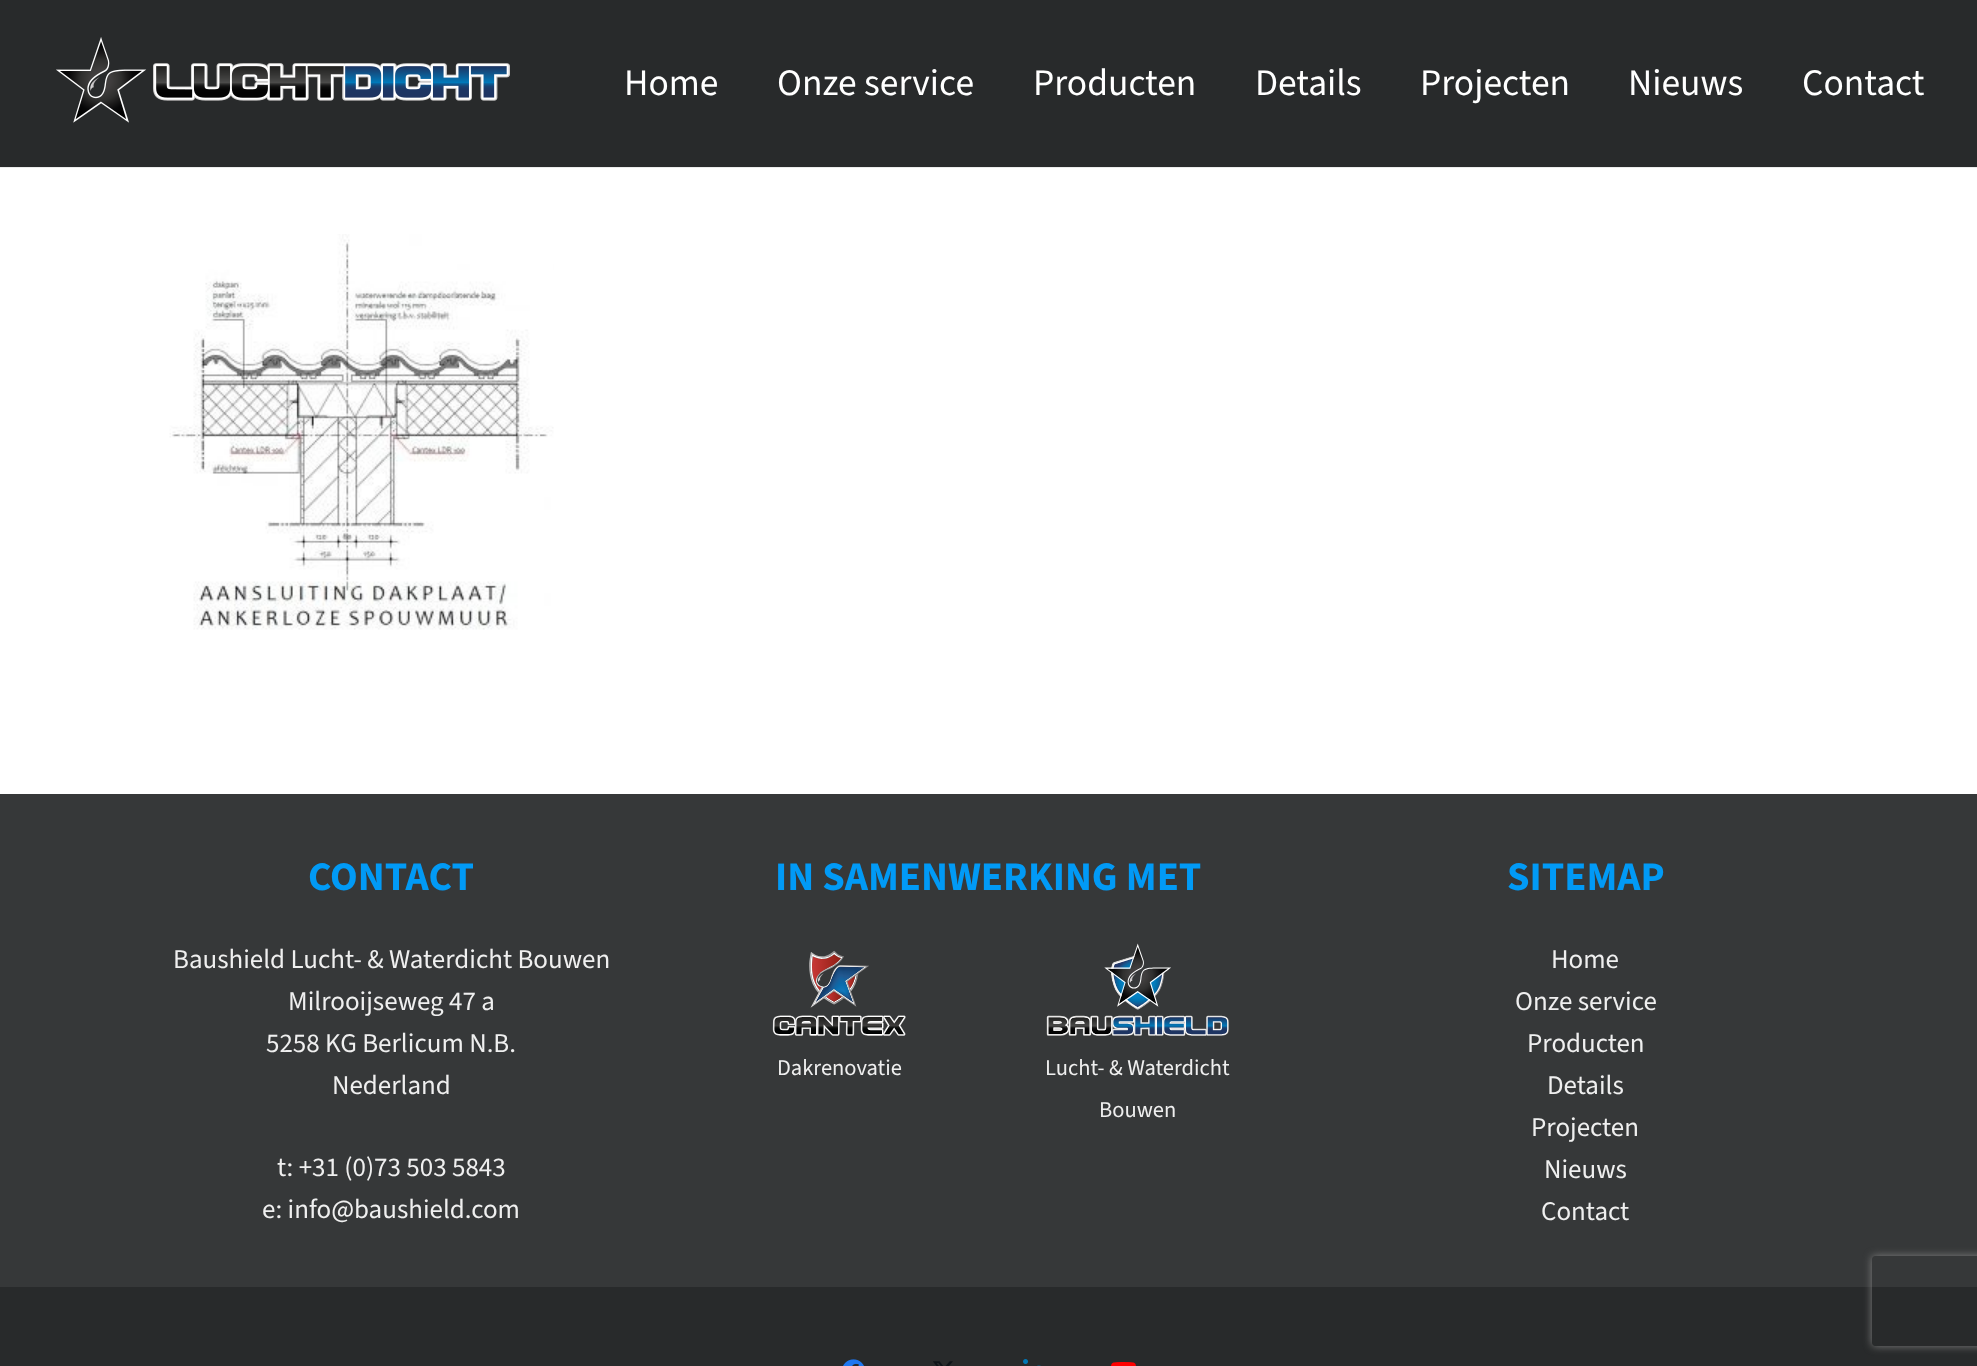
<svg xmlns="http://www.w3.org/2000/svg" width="1977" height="1366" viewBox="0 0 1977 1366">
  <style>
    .t1 { font: 37.5px 'Source Sans 3'; fill: #fff; }
    .t2 { font: bold 40.5px 'Source Sans 3'; fill: #019af6; }
    .t3 { font: 27px 'Source Sans 3'; fill: #efefef; }
    .t4 { font: 22.5px 'Source Sans 3'; fill: #efefef; }
  </style>
  <defs>
    <clipPath id="clip1"><path d="M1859 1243H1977V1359H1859ZM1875 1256H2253C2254.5 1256 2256 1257.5 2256 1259V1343C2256 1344.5 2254.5 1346 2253 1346H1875C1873.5 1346 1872 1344.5 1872 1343V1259C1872 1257.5 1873.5 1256 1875 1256Z" clip-rule="evenodd"/></clipPath>
  </defs>
  <rect width="100%" height="100%" fill="#fff"/>
  <rect x="0" y="167" width="1977" height="1" fill="#ebebeb"/>
  <rect x="0" y="0" width="1977" height="167" fill="#282a2b"/>
  <image x="56" y="37" width="454" height="86" href="images/1.png"/>
  <text x="624" y="95" class="t1">Home</text>
  <text x="777" y="95" class="t1">Onze service</text>
  <text x="1033" y="95" class="t1">Producten</text>
  <text x="1255" y="95" class="t1">Details</text>
  <text x="1420" y="95" class="t1">Projecten</text>
  <text x="1628" y="95" class="t1">Nieuws</text>
  <text x="1802" y="95" class="t1">Contact</text>
  <image x="169" y="234" width="385" height="396" href="images/2.png"/>
  <rect x="0" y="794" width="1977" height="493" fill="#363839"/>
  <text x="308" y="890" class="t2">CONTACT</text>
  <text x="173" y="968" class="t3">Baushield Lucht- &amp; Waterdicht Bouwen</text>
  <text x="288" y="1010" class="t3">Milrooijseweg 47 a</text>
  <text x="266" y="1052" class="t3">5258 KG Berlicum N.B.</text>
  <text x="332" y="1094" class="t3">Nederland</text>
  <text x="277" y="1176" class="t3">t: +31 (0)73 503 5843</text>
  <text x="262" y="1218" class="t3">e: info@baushield.com</text>
  <text x="775" y="890" class="t2">IN SAMENWERKING MET</text>
  <image x="772" y="950" width="134" height="86" href="images/3.png"/>
  <text x="777" y="1075" class="t4">Dakrenovatie</text>
  <image x="1046" y="943" width="183" height="93" href="images/4.png"/>
  <text x="1045" y="1075" class="t4">Lucht- &amp; Waterdicht</text>
  <text x="1099" y="1117" class="t4">Bouwen</text>
  <text x="1507" y="890" class="t2">SITEMAP</text>
  <text x="1551" y="968" class="t3">Home</text>
  <text x="1515" y="1010" class="t3">Onze service</text>
  <text x="1527" y="1052" class="t3">Producten</text>
  <text x="1547" y="1094" class="t3">Details</text>
  <text x="1531" y="1136" class="t3">Projecten</text>
  <text x="1544" y="1178" class="t3">Nieuws</text>
  <text x="1541" y="1220" class="t3">Contact</text>
  <rect x="0" y="1287" width="1977" height="79" fill="#282a2b"/>
  <image x="843" y="1359" width="21" height="7" href="images/5.png"/>
  <image x="933" y="1361" width="20" height="5" href="images/6.png"/>
  <image x="1023" y="1359" width="18" height="7" href="images/7.png"/>
  <image x="1111" y="1362" width="25" height="4" href="images/8.png"/>
  <g clip-path="url(#clip1)">
    <rect x="1872" y="1256" width="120" height="90" rx="3" fill="#808080" filter="blur(4px)"/>
  </g>
</svg>
